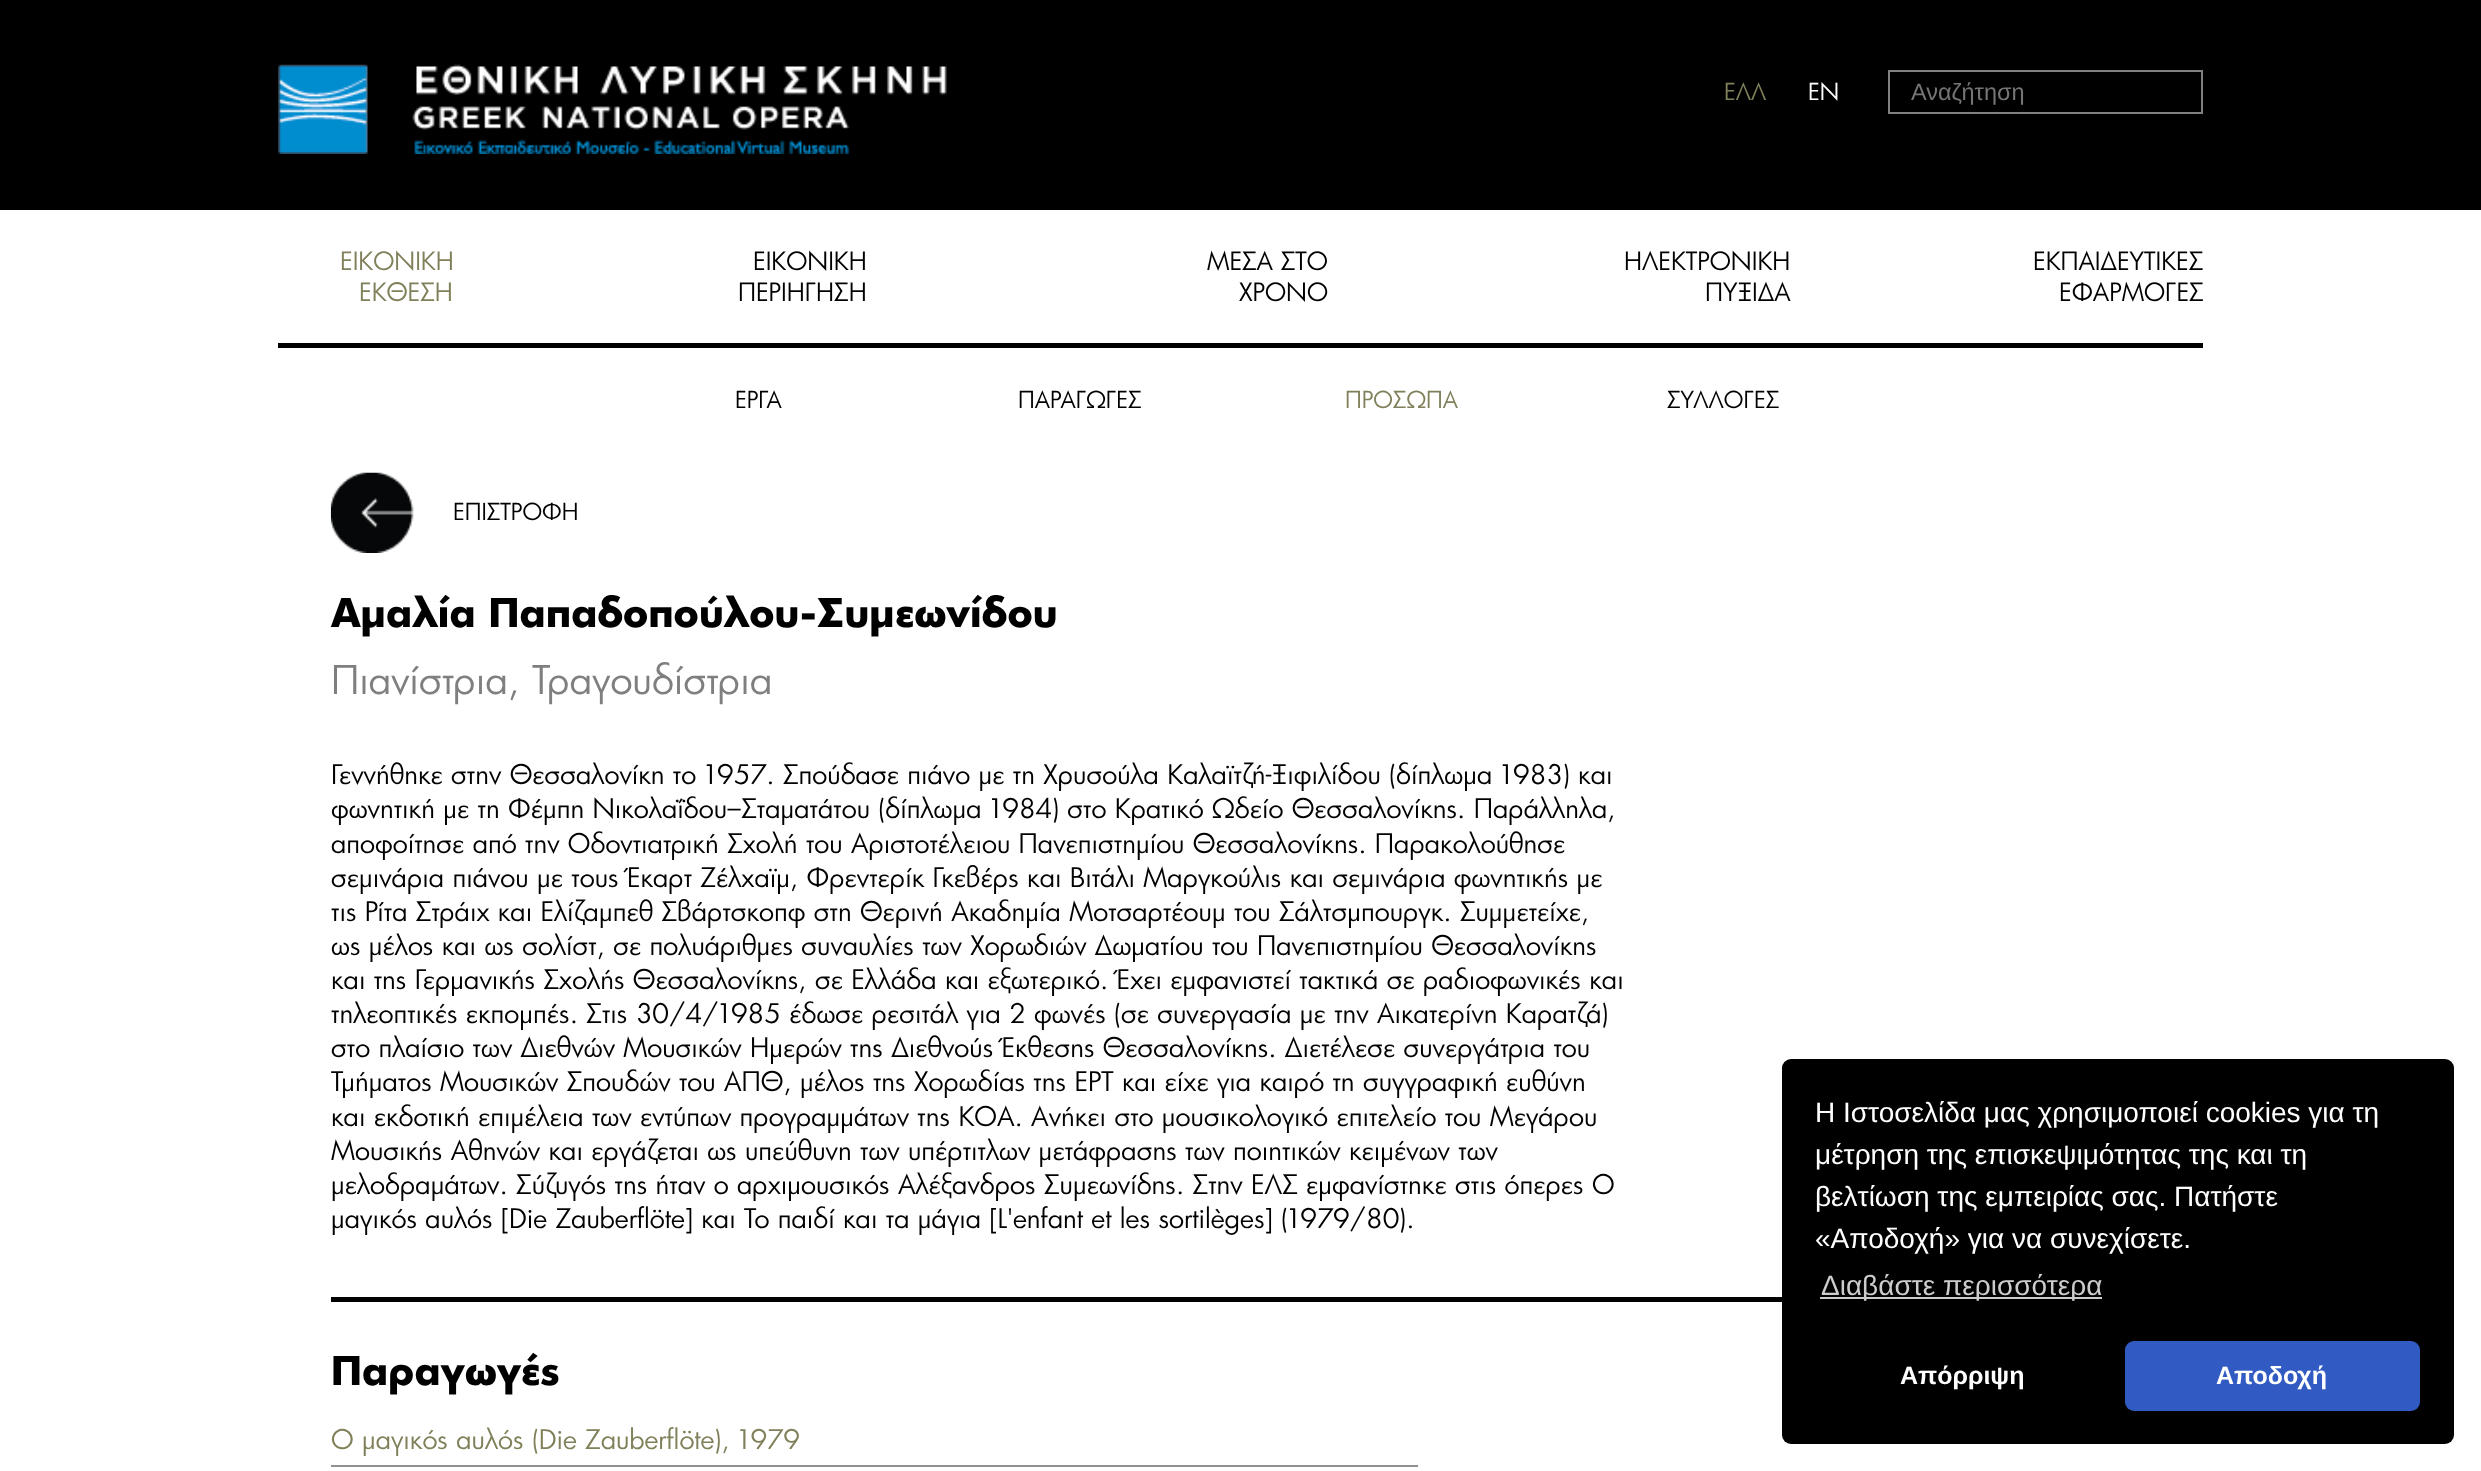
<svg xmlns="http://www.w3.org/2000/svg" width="2481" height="1471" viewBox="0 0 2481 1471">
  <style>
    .t1 { font: 22.75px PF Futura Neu; fill: #80805b; }
    .t2 { font: 22.75px PF Futura Neu; fill: #fff; }
    .t3 { font: 23.5px Liberation Sans; fill: #757575; }
    .t4 { font: 24.5px PF Futura Neu; fill: #80805b; }
    .t5 { font: 24.5px PF Futura Neu; fill: #000; }
    .t6 { font: 22.75px PF Futura Neu; fill: #000; }
    .t7 { font: bold 38.5px PF Futura Neu; fill: #000; }
    .t8 { font: 38.5px PF Futura Neu; fill: #7f7f7f; }
    .t9 { font: 26.25px PF Futura Neu; fill: #000; }
    .t10 { font: 26.25px PF Futura Neu; fill: #80805b; }
    .t11 { font: 28px Liberation Sans; fill: #fff; }
    .t12 { font: 28px Liberation Sans; fill: #ccc; }
    .t13 { font: bold 25px Liberation Sans; fill: #fff; }
  </style>
  <rect width="100%" height="100%" fill="#fff"/>
  <rect x="0" y="0" width="2481" height="210" fill="#000"/>
  <image x="278" y="64" width="669" height="90" href="images/1.png"/>
  <text x="1724" y="100" class="t1">ΕΛΛ</text>
  <text x="1808" y="100" class="t2">EN</text>
  <rect x="1889" y="71" width="313" height="42" fill="none" stroke="#818181" stroke-width="2"/>
  <text x="1911" y="100" class="t3">Αναζήτηση</text>
  <rect x="278" y="343" width="1925" height="5" fill="#000"/>
  <text x="340" y="270" class="t4">ΕΙΚΟΝΙΚΗ</text>
  <text x="359" y="301" class="t4">ΕΚΘΕΣΗ</text>
  <text x="753" y="270" class="t5">ΕΙΚΟΝΙΚΗ</text>
  <text x="738" y="301" class="t5">ΠΕΡΙΗΓΗΣΗ</text>
  <text x="1207" y="270" class="t5">ΜΕΣΑ ΣΤΟ</text>
  <text x="1239" y="301" class="t5">ΧΡΟΝΟ</text>
  <text x="1624" y="270" class="t5">ΗΛΕΚΤΡΟΝΙΚΗ</text>
  <text x="1705" y="301" class="t5">ΠΥΞΙΔΑ</text>
  <text x="2033" y="270" class="t5">ΕΚΠΑΙΔΕΥΤΙΚΕΣ</text>
  <text x="2059" y="301" class="t5">ΕΦΑΡΜΟΓΕΣ</text>
  <text x="735" y="408" class="t6">ΕΡΓΑ</text>
  <text x="1018" y="408" class="t6">ΠΑΡΑΓΩΓΕΣ</text>
  <text x="1345" y="408" class="t1">ΠΡΟΣΩΠΑ</text>
  <text x="1667" y="408" class="t6">ΣΥΛΛΟΓΕΣ</text>
  <rect x="331" y="1297" width="1451" height="5" fill="#000"/>
  <image x="330" y="472" width="84" height="81" href="images/2.png"/>
  <text x="453" y="520" class="t6">ΕΠΙΣΤΡΟΦΗ</text>
  <text x="331" y="627" class="t7">Αμαλία Παπαδοπούλου-Συμεωνίδου</text>
  <text x="331" y="694" class="t8">Πιανίστρια, Τραγουδίστρια</text>
  <text x="331" y="784" class="t9">Γεννήθηκε στην Θεσσαλονίκη το 1957. Σπούδασε πιάνο με τη Χρυσούλα Καλαϊτζή-Ξιφιλίδου (δίπλωμα 1983) και</text>
  <text x="331" y="818" class="t9">φωνητική με τη Φέμπη Νικολαΐδου–Σταματάτου (δίπλωμα 1984) στο Κρατικό Ωδείο Θεσσαλονίκης. Παράλληλα,</text>
  <text x="331" y="853" class="t9">αποφοίτησε από την Οδοντιατρική Σχολή του Αριστοτέλειου Πανεπιστημίου Θεσσαλονίκης. Παρακολούθησε</text>
  <text x="331" y="887" class="t9">σεμινάρια πιάνου με τους Έκαρτ Ζέλχαϊμ, Φρεντερίκ Γκεβέρς και Βιτάλι Μαργκούλις και σεμινάρια φωνητικής με</text>
  <text x="331" y="921" class="t9">τις Ρίτα Στράιχ και Ελίζαμπεθ Σβάρτσκοπφ στη Θερινή Ακαδημία Μοτσαρτέουμ του Σάλτσμπουργκ. Συμμετείχε,</text>
  <text x="331" y="955" class="t9">ως μέλος και ως σολίστ, σε πολυάριθμες συναυλίες των Χορωδιών Δωματίου του Πανεπιστημίου Θεσσαλονίκης</text>
  <text x="331" y="989" class="t9">και της Γερμανικής Σχολής Θεσσαλονίκης, σε Ελλάδα και εξωτερικό. Έχει εμφανιστεί τακτικά σε ραδιοφωνικές και</text>
  <text x="331" y="1023" class="t9">τηλεοπτικές εκπομπές. Στις 30/4/1985 έδωσε ρεσιτάλ για 2 φωνές (σε συνεργασία με την Αικατερίνη Καρατζά)</text>
  <text x="331" y="1057" class="t9">στο πλαίσιο των Διεθνών Μουσικών Ημερών της Διεθνούς Έκθεσης Θεσσαλονίκης. Διετέλεσε συνεργάτρια του</text>
  <text x="331" y="1091" class="t9">Τμήματος Μουσικών Σπουδών του ΑΠΘ, μέλος της Χορωδίας της ΕΡΤ και είχε για καιρό τη συγγραφική ευθύνη</text>
  <text x="331" y="1126" class="t9">και εκδοτική επιμέλεια των εντύπων προγραμμάτων της ΚΟΑ. Ανήκει στο μουσικολογικό επιτελείο του Μεγάρου</text>
  <text x="331" y="1160" class="t9">Μουσικής Αθηνών και εργάζεται ως υπεύθυνη των υπέρτιτλων μετάφρασης των ποιητικών κειμένων των</text>
  <text x="331" y="1194" class="t9">μελοδραμάτων. Σύζυγός της ήταν ο αρχιμουσικός Αλέξανδρος Συμεωνίδης. Στην ΕΛΣ εμφανίστηκε στις όπερες Ο</text>
  <text x="331" y="1228" class="t9">μαγικός αυλός [Die Zauberflöte] και Το παιδί και τα μάγια [L'enfant et les sortilèges] (1979/80).</text>
  <text x="331" y="1385" class="t7">Παραγωγές</text>
  <rect x="331" y="1465" width="1087" height="2" fill="#919090"/>
  <text x="331" y="1449" class="t10">Ο μαγικός αυλός (Die Zauberflöte), 1979</text>
  <rect x="1782" y="1059" width="672" height="385" rx="9" fill="#000"/>
  <text x="1815" y="1122" class="t11">Η Ιστοσελίδα μας χρησιμοποιεί cookies για τη</text>
  <text x="1815" y="1164" class="t11">μέτρηση της επισκεψιμότητας της και τη</text>
  <text x="1815" y="1206" class="t11">βελτίωση της εμπειρίας σας. Πατήστε</text>
  <text x="1815" y="1248" class="t11">«Αποδοχή» για να συνεχίσετε.</text>
  <rect x="1820" y="1297" width="282" height="2" fill="#ccc"/>
  <text x="1821" y="1295" class="t12">Διαβάστε περισσότερα</text>
  <text x="1900" y="1384" class="t13">Απόρριψη</text>
  <rect x="2125" y="1341" width="295" height="70" rx="9" fill="#315ac2"/>
  <text x="2216" y="1384" class="t13">Αποδοχή</text>
</svg>
